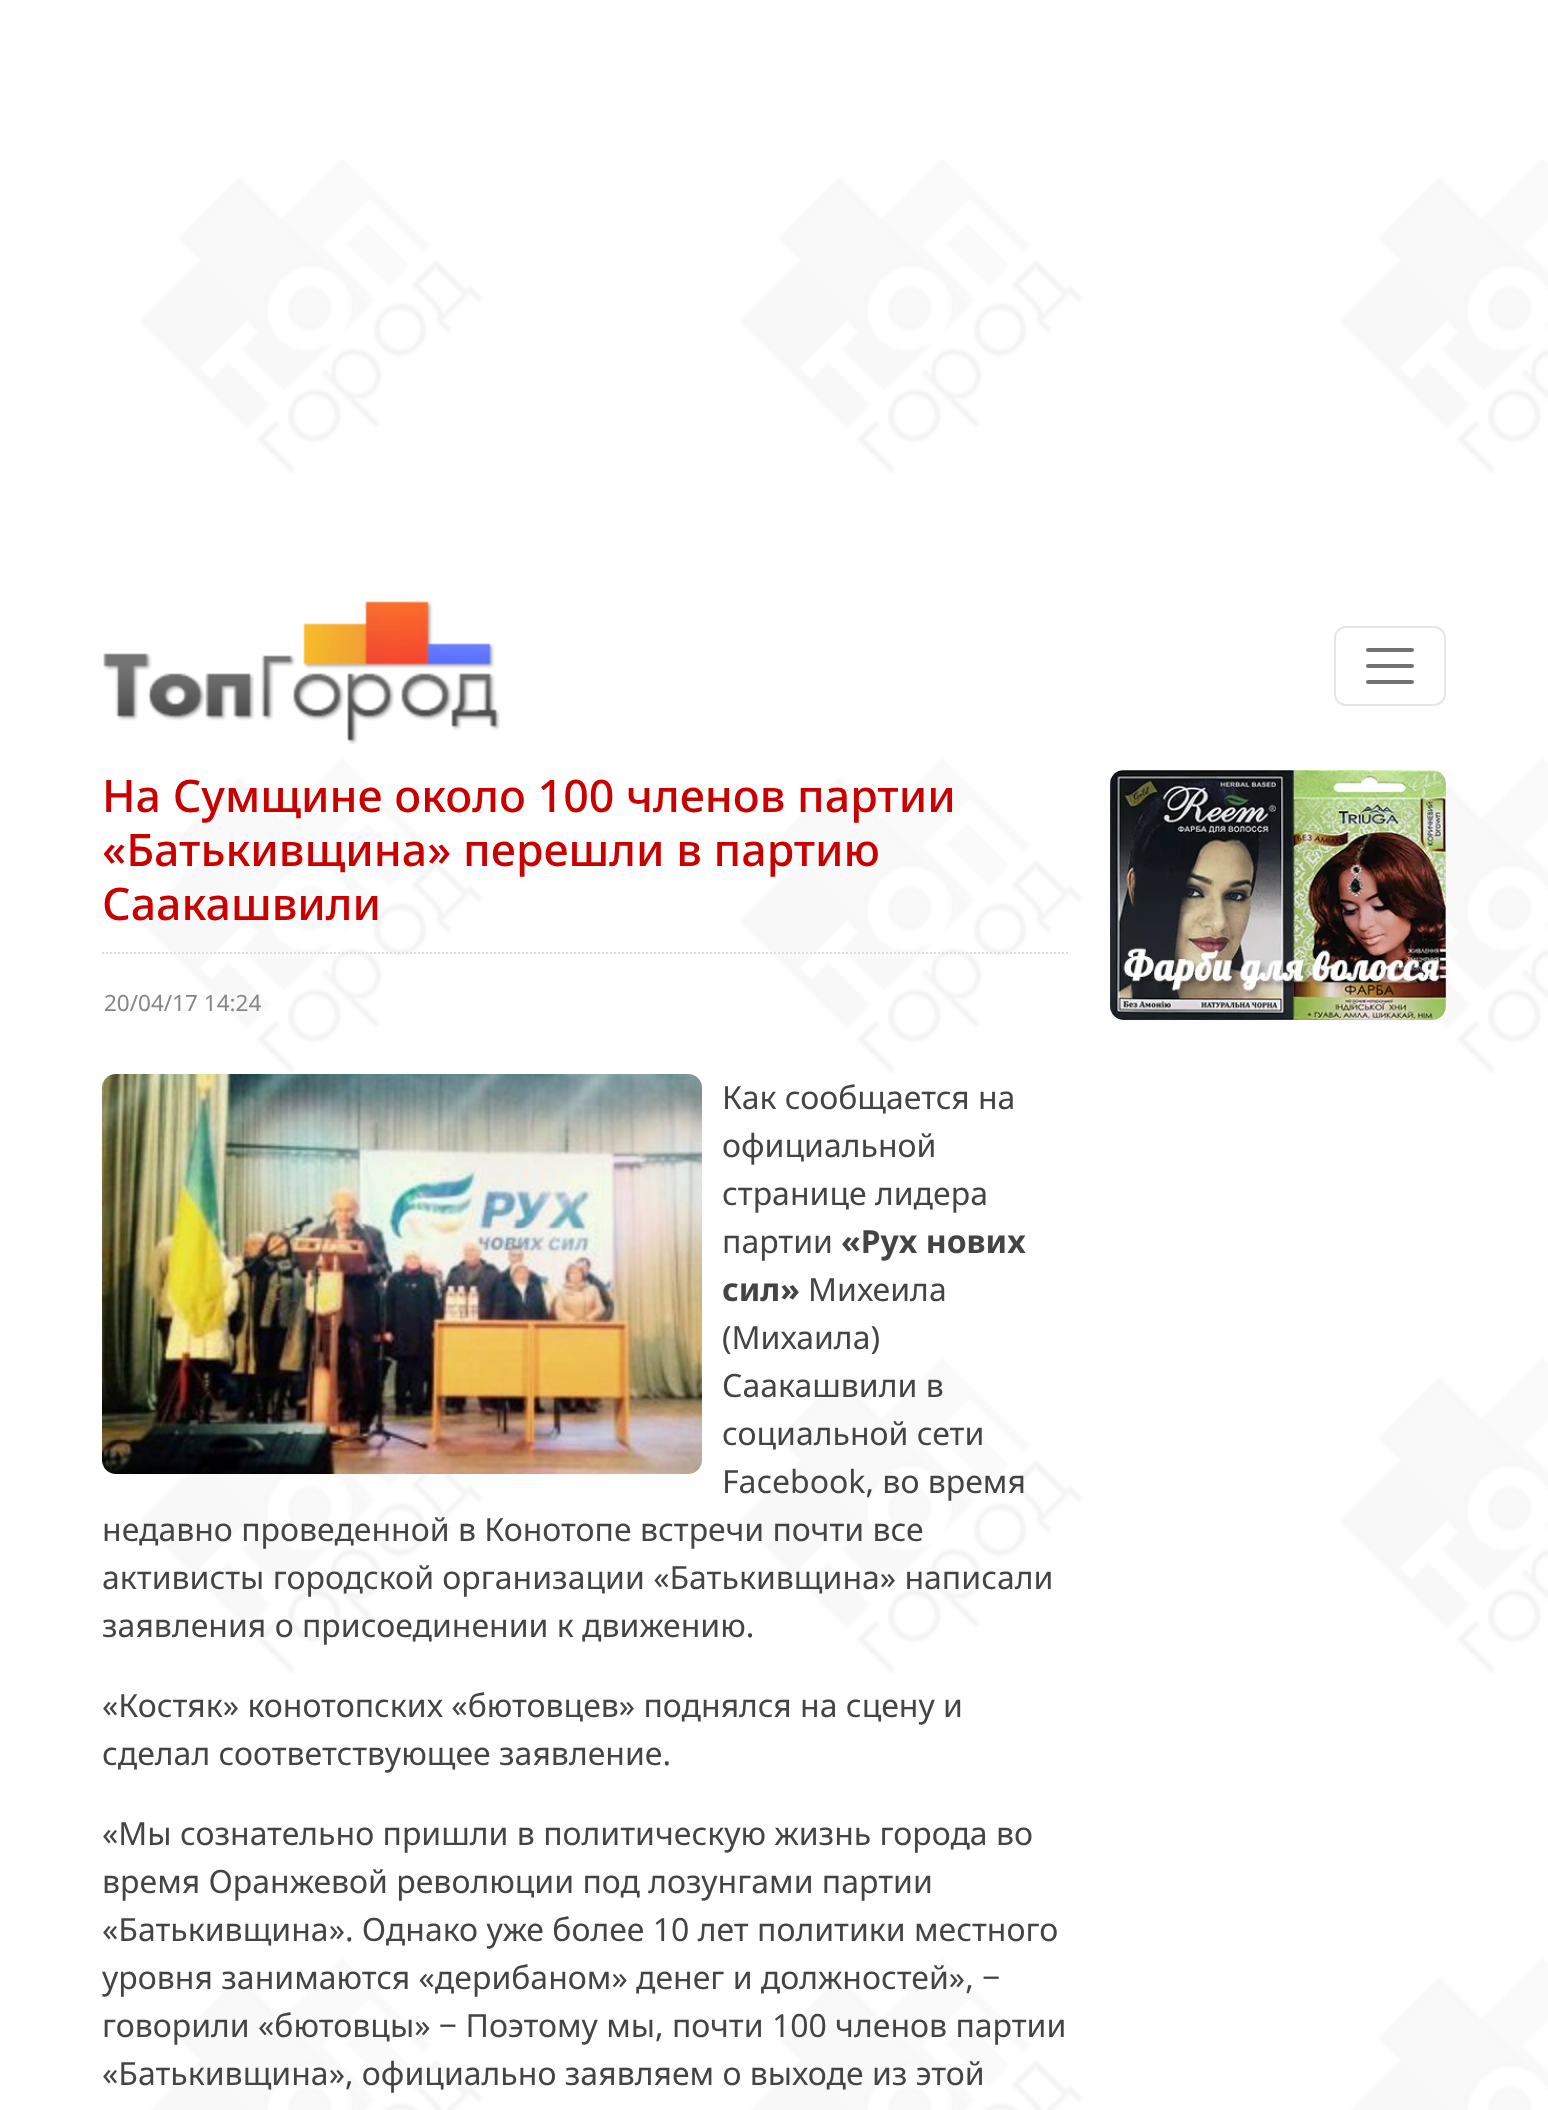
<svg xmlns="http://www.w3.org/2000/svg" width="1548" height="2110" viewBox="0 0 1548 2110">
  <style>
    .t1 { font: 500 44.75px Noto Sans; fill: #ca0000; }
    .t2 { font: 22.5px Noto Sans; fill: #868686; }
    .t3 { font: 32px Noto Sans; fill: #444; }
    .t4 { font: bold 32px Noto Sans; fill: #444; }
  </style>
  <rect width="100%" height="100%" fill="#fff"/>
  <image x="141" y="160" width="1407" height="1950" href="images/1.png"/>
  <image x="103" y="601" width="397" height="143" href="images/2.png"/>
  <rect x="1335" y="627" width="110" height="78" rx="11" fill="none" stroke="#e6e6e6" stroke-width="2"/>
  <path d="M1368 650H1412M1368 666H1412M1368 682H1412" fill="none" stroke="#737373" stroke-width="4" stroke-linecap="round"/>
  <path d="M102 953H1070" fill="none" stroke="#ddd" stroke-width="2" stroke-dasharray="2 2"/>
  <text x="102" y="812" class="t1">На Сумщине около 100 членов партии</text>
  <text x="102" y="866" class="t1">«Батькивщина» перешли в партию</text>
  <text x="102" y="920" class="t1">Саакашвили</text>
  <text x="104" y="1011" class="t2">20/04/17 14:24</text>
  <image x="102" y="1074" width="600" height="400" href="images/3.png"/>
  <text x="722" y="1109" class="t3">Как сообщается на</text>
  <text x="722" y="1157" class="t3">официальной</text>
  <text x="722" y="1205" class="t3">странице лидера</text>
  <text x="722" y="1253" class="t3">партии</text>
  <text x="841" y="1253" class="t4">«Рух нових</text>
  <text x="722" y="1301" class="t4">сил»</text>
  <text x="808" y="1301" class="t3">Михеила</text>
  <text x="722" y="1349" class="t3">(Михаила)</text>
  <text x="722" y="1397" class="t3">Саакашвили в</text>
  <text x="722" y="1445" class="t3">социальной сети</text>
  <text x="722" y="1493" class="t3">Facebook, во время</text>
  <text x="102" y="1541" class="t3">недавно проведенной в Конотопе встречи почти все</text>
  <text x="102" y="1589" class="t3">активисты городской организации «Батькивщина» написали</text>
  <text x="102" y="1637" class="t3">заявления о присоединении к движению.</text>
  <text x="102" y="1717" class="t3">«Костяк» конотопских «бютовцев» поднялся на сцену и</text>
  <text x="102" y="1765" class="t3">сделал соответствующее заявление.</text>
  <text x="102" y="1845" class="t3">«Мы сознательно пришли в политическую жизнь города во</text>
  <text x="102" y="1893" class="t3">время Оранжевой революции под лозунгами партии</text>
  <text x="102" y="1941" class="t3">«Батькивщина». Однако уже более 10 лет политики местного</text>
  <text x="102" y="1989" class="t3">уровня занимаются «дерибаном» денег и должностей», −</text>
  <text x="102" y="2037" class="t3">говорили «бютовцы» − Поэтому мы, почти 100 членов партии</text>
  <text x="102" y="2085" class="t3">«Батькивщина», официально заявляем о выходе из этой</text>
  <image x="1110" y="770" width="336" height="250" href="images/4.png"/>
</svg>
